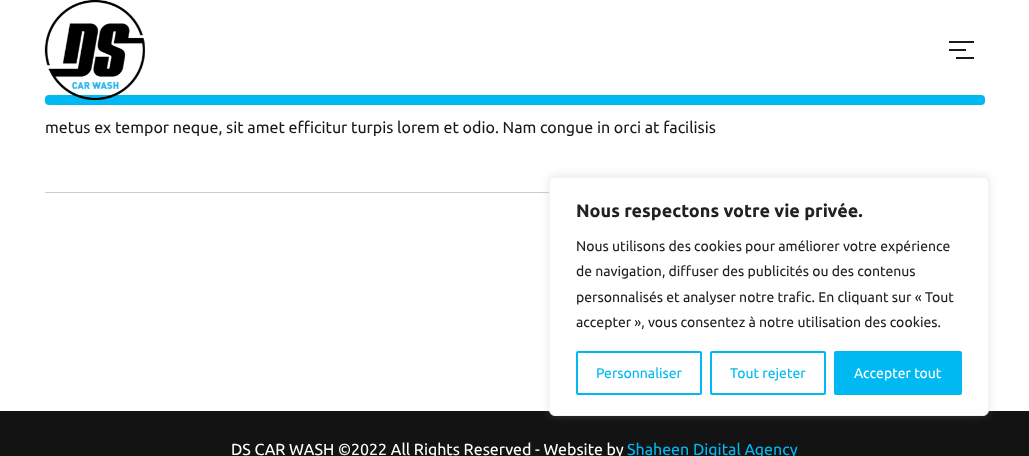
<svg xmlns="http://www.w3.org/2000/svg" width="1029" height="456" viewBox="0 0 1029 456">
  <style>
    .t1 { font: 16px Ubuntu; fill: #19191b; }
    .t2 { font: bold 18px Ubuntu; fill: #212121; }
    .t3 { font: 14px Ubuntu; fill: #212121; }
    .t4 { font: 14px Ubuntu; fill: #00b9f2; }
    .t5 { font: 14px Ubuntu; fill: #fff; }
    .t6 { font: 16px Ubuntu; fill: #fff; }
    .t7 { font: 16px Ubuntu; fill: #00b9f2; }
  </style>
  <rect width="100%" height="100%" fill="#fff"/>
  <rect x="45" y="95" width="940" height="10" rx="4" fill="#00b9f2"/>
  <image x="44" y="0" width="101" height="100" href="images/1.png"/>
  <rect x="949" y="41" width="25" height="2" fill="#19191b"/>
  <rect x="949" y="49" width="17" height="2" fill="#19191b"/>
  <rect x="956" y="57" width="18" height="2" fill="#19191b"/>
  <text x="45" y="133" class="t1">metus ex tempor neque, sit amet efficitur turpis lorem et odio. Nam congue in orci at facilisis</text>
  <rect x="45" y="192" width="504" height="1" fill="#ccc"/>
  <rect x="0" y="411" width="1029" height="45" fill="#131314"/>
  <rect x="549" y="176" width="440" height="239" rx="6" fill="#acabab4d" filter="blur(5px)"/>
  <rect x="549.5" y="177.5" width="439" height="238" rx="5.5" fill="#fff" stroke="#f4f4f4"/>
  <text x="576" y="217" class="t2">Nous respectons votre vie privée.</text>
  <text x="576" y="251" class="t3">Nous utilisons des cookies pour améliorer votre expérience</text>
  <text x="576" y="276" class="t3">de navigation, diffuser des publicités ou des contenus</text>
  <text x="576" y="302" class="t3">personnalisés et analyser notre trafic. En cliquant sur « Tout</text>
  <text x="576" y="327" class="t3">accepter », vous consentez à notre utilisation des cookies.</text>
  <rect x="577" y="352" width="124" height="42" rx="1" fill="none" stroke="#00b9f2" stroke-width="2"/>
  <text x="596" y="378" class="t4">Personnaliser</text>
  <rect x="711" y="352" width="114" height="42" rx="1" fill="none" stroke="#00b9f2" stroke-width="2"/>
  <text x="730" y="378" class="t4">Tout rejeter</text>
  <rect x="835" y="352" width="126" height="42" rx="1" fill="#00b9f2" stroke="#00b9f2" stroke-width="2"/>
  <text x="854" y="378" class="t5">Accepter tout</text>
  <text x="231" y="455" class="t6">DS CAR WASH ©2022 All Rights Reserved - Website by</text>
  <text x="627" y="455" class="t7">Shaheen Digital Agency</text>
</svg>
